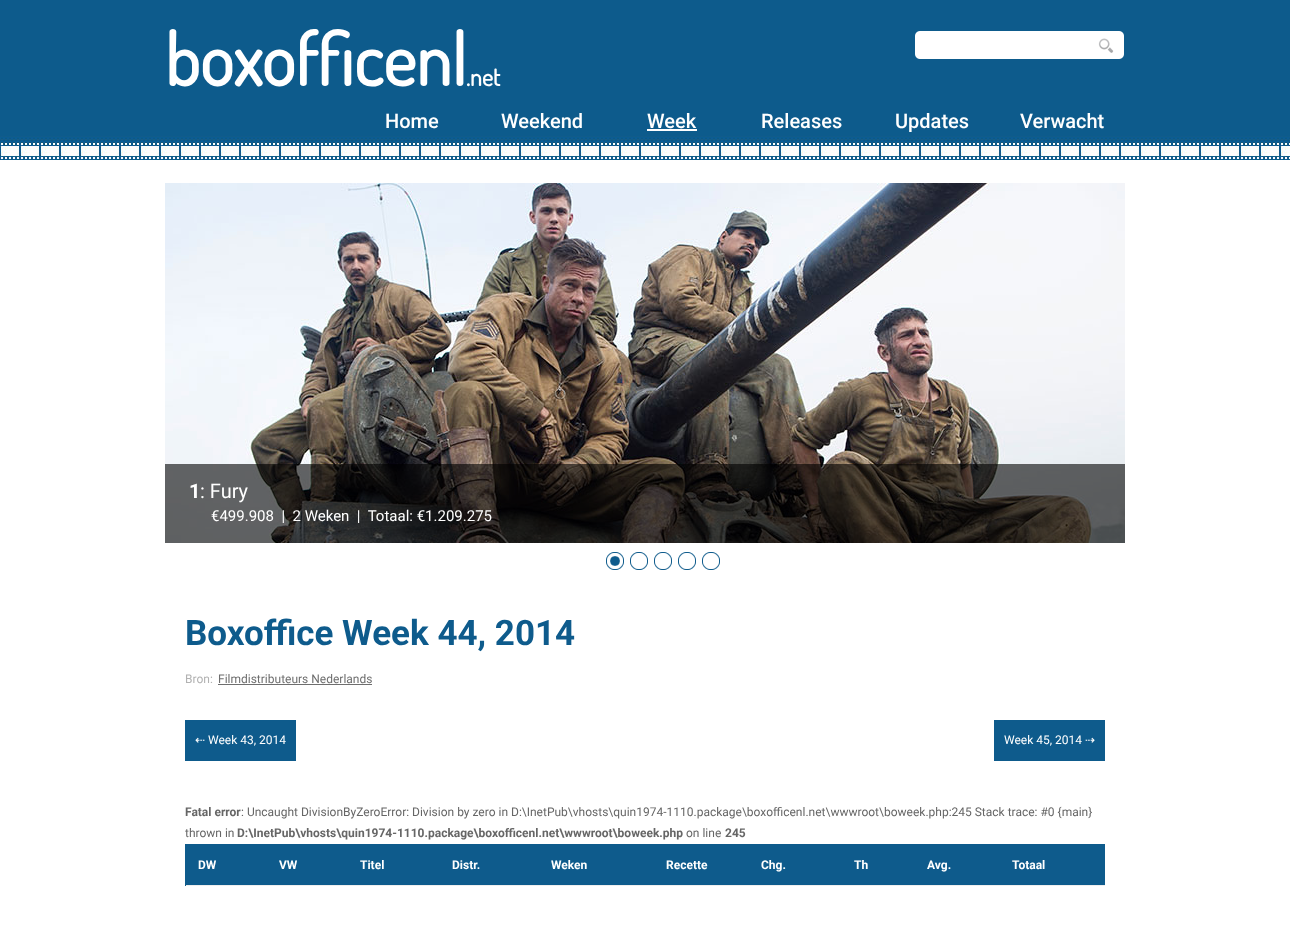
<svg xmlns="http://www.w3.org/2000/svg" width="1290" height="948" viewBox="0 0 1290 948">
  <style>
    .t1 { font: bold 72px Dosis; fill: #fff; }
    .t2 { font: bold 24px Dosis; fill: #fff; }
    .t3 { font: 500 20px Roboto; fill: #fff; }
    .t4 { font: bold 20px Roboto; fill: #fff; }
    .t5 { font: 20px Roboto; fill: #fff; }
    .t6 { font: 15px Roboto; fill: #fff; }
    .t7 { font: bold 35px Roboto; fill: #0e5b8c; }
    .t8 { font: 12px Roboto; fill: #b2b2b2; }
    .t9 { font: 12px Roboto; fill: #6e6e6e; }
    .t10 { font: 12px DejaVu Sans; fill: #fff; }
    .t11 { font: 12px Roboto; fill: #fff; }
    .t12 { font: bold 12px Roboto; fill: #666; }
    .t13 { font: 12px Roboto; fill: #666; }
    .t14 { font: bold 12px Roboto; fill: #fff; }
  </style>
  <rect width="100%" height="100%" fill="#fff"/>
  <image x="0" y="0" width="1290" height="160" href="images/1.png"/>
  <text x="165" y="86" class="t1">boxofficenl</text>
  <text x="466" y="86" class="t2">.net</text>
  <image x="915" y="31" width="181" height="28" href="images/2.png"/>
  <image x="1096" y="31" width="28" height="28" href="images/3.png"/>
  <text x="385" y="128" class="t3">Home</text>
  <text x="501" y="128" class="t3">Weekend</text>
  <text x="647" y="128" class="t3">Week</text>
  <rect x="647" y="129" width="50" height="2" fill="#fff"/>
  <text x="761" y="128" class="t3">Releases</text>
  <text x="895" y="128" class="t3">Updates</text>
  <text x="1020" y="128" class="t3">Verwacht</text>
  <image x="165" y="183" width="960" height="360" href="images/4.png"/>
  <rect x="165" y="464" width="960" height="79" fill="#00000099"/>
  <text x="189" y="498" class="t4">1</text>
  <text x="200" y="498" class="t5">: Fury</text>
  <text x="211" y="521" class="t6" xml:space="preserve">€499.908  |  2 Weken  |  Totaal: €1.209.275</text>
  <image x="606" y="552" width="18" height="18" href="images/5.png"/>
  <image x="630" y="552" width="18" height="18" href="images/6.png"/>
  <image x="654" y="552" width="18" height="18" href="images/6.png"/>
  <image x="678" y="552" width="18" height="18" href="images/6.png"/>
  <image x="702" y="552" width="18" height="18" href="images/6.png"/>
  <text x="185" y="645" class="t7">Boxoffice Week 44, 2014</text>
  <text x="185" y="683" class="t8">Bron:</text>
  <text x="218" y="683" class="t9">Filmdistributeurs Nederlands</text>
  <rect x="218" y="684" width="154" height="1" fill="#6e6e6e"/>
  <rect x="185" y="720" width="111" height="41" fill="#0e5b8c"/>
  <text x="195" y="744" class="t10">⇠</text>
  <text x="208" y="744" class="t11">Week 43, 2014</text>
  <rect x="994" y="720" width="111" height="41" fill="#0e5b8c"/>
  <text x="1004" y="744" class="t11">Week 45, 2014</text>
  <text x="1085" y="744" class="t10">⇢</text>
  <text x="185" y="816" class="t12">Fatal error</text>
  <text x="241" y="816" class="t13">: Uncaught DivisionByZeroError: Division by zero in D:\InetPub\vhosts\quin1974-1110.package\boxofficenl.net\wwwroot\boweek.php:245 Stack trace: #0 {main}</text>
  <text x="185" y="837" class="t13">thrown in</text>
  <text x="237" y="837" class="t12">D:\InetPub\vhosts\quin1974-1110.package\boxofficenl.net\wwwroot\boweek.php</text>
  <text x="686" y="837" class="t13">on line</text>
  <text x="725" y="837" class="t12">245</text>
  <rect x="186" y="845" width="80" height="40" fill="#0e5b8c"/>
  <rect x="999" y="844" width="106" height="1" fill="#0e5b8c"/>
  <rect x="999" y="885" width="106" height="1" fill="#eee"/>
  <rect x="999" y="844" width="1" height="42" fill="#0e5b8c"/>
  <rect x="914" y="844" width="86" height="1" fill="#0e5b8c"/>
  <rect x="914" y="885" width="86" height="1" fill="#eee"/>
  <rect x="914" y="844" width="1" height="42" fill="#0e5b8c"/>
  <rect x="841" y="844" width="74" height="1" fill="#0e5b8c"/>
  <rect x="841" y="885" width="74" height="1" fill="#eee"/>
  <rect x="841" y="844" width="1" height="42" fill="#0e5b8c"/>
  <rect x="748" y="844" width="94" height="1" fill="#0e5b8c"/>
  <rect x="748" y="885" width="94" height="1" fill="#eee"/>
  <rect x="748" y="844" width="1" height="42" fill="#0e5b8c"/>
  <rect x="653" y="844" width="96" height="1" fill="#0e5b8c"/>
  <rect x="653" y="885" width="96" height="1" fill="#eee"/>
  <rect x="653" y="844" width="1" height="42" fill="#0e5b8c"/>
  <rect x="538" y="844" width="116" height="1" fill="#0e5b8c"/>
  <rect x="538" y="885" width="116" height="1" fill="#eee"/>
  <rect x="538" y="844" width="1" height="42" fill="#0e5b8c"/>
  <rect x="439" y="844" width="100" height="1" fill="#0e5b8c"/>
  <rect x="439" y="885" width="100" height="1" fill="#eee"/>
  <rect x="439" y="844" width="1" height="42" fill="#0e5b8c"/>
  <rect x="347" y="844" width="93" height="1" fill="#0e5b8c"/>
  <rect x="347" y="885" width="93" height="1" fill="#eee"/>
  <rect x="347" y="844" width="1" height="42" fill="#0e5b8c"/>
  <rect x="266" y="844" width="82" height="1" fill="#0e5b8c"/>
  <rect x="266" y="885" width="82" height="1" fill="#eee"/>
  <rect x="266" y="844" width="1" height="42" fill="#0e5b8c"/>
  <rect x="185" y="844" width="82" height="1" fill="#0e5b8c"/>
  <rect x="185" y="885" width="82" height="1" fill="#eee"/>
  <rect x="185" y="844" width="1" height="42" fill="#0e5b8c"/>
  <text x="198" y="869" class="t14">DW</text>
  <rect x="267" y="845" width="80" height="40" fill="#0e5b8c"/>
  <text x="279" y="869" class="t14">VW</text>
  <rect x="348" y="845" width="91" height="40" fill="#0e5b8c"/>
  <text x="360" y="869" class="t14">Titel</text>
  <rect x="440" y="845" width="98" height="40" fill="#0e5b8c"/>
  <text x="452" y="869" class="t14">Distr.</text>
  <rect x="539" y="845" width="114" height="40" fill="#0e5b8c"/>
  <text x="551" y="869" class="t14">Weken</text>
  <rect x="654" y="845" width="94" height="40" fill="#0e5b8c"/>
  <text x="666" y="869" class="t14">Recette</text>
  <rect x="749" y="845" width="92" height="40" fill="#0e5b8c"/>
  <text x="761" y="869" class="t14">Chg.</text>
  <rect x="842" y="845" width="72" height="40" fill="#0e5b8c"/>
  <text x="854" y="869" class="t14">Th</text>
  <rect x="915" y="845" width="84" height="40" fill="#0e5b8c"/>
  <text x="927" y="869" class="t14">Avg.</text>
  <rect x="1000" y="845" width="105" height="40" fill="#0e5b8c"/>
  <text x="1012" y="869" class="t14">Totaal</text>
</svg>
